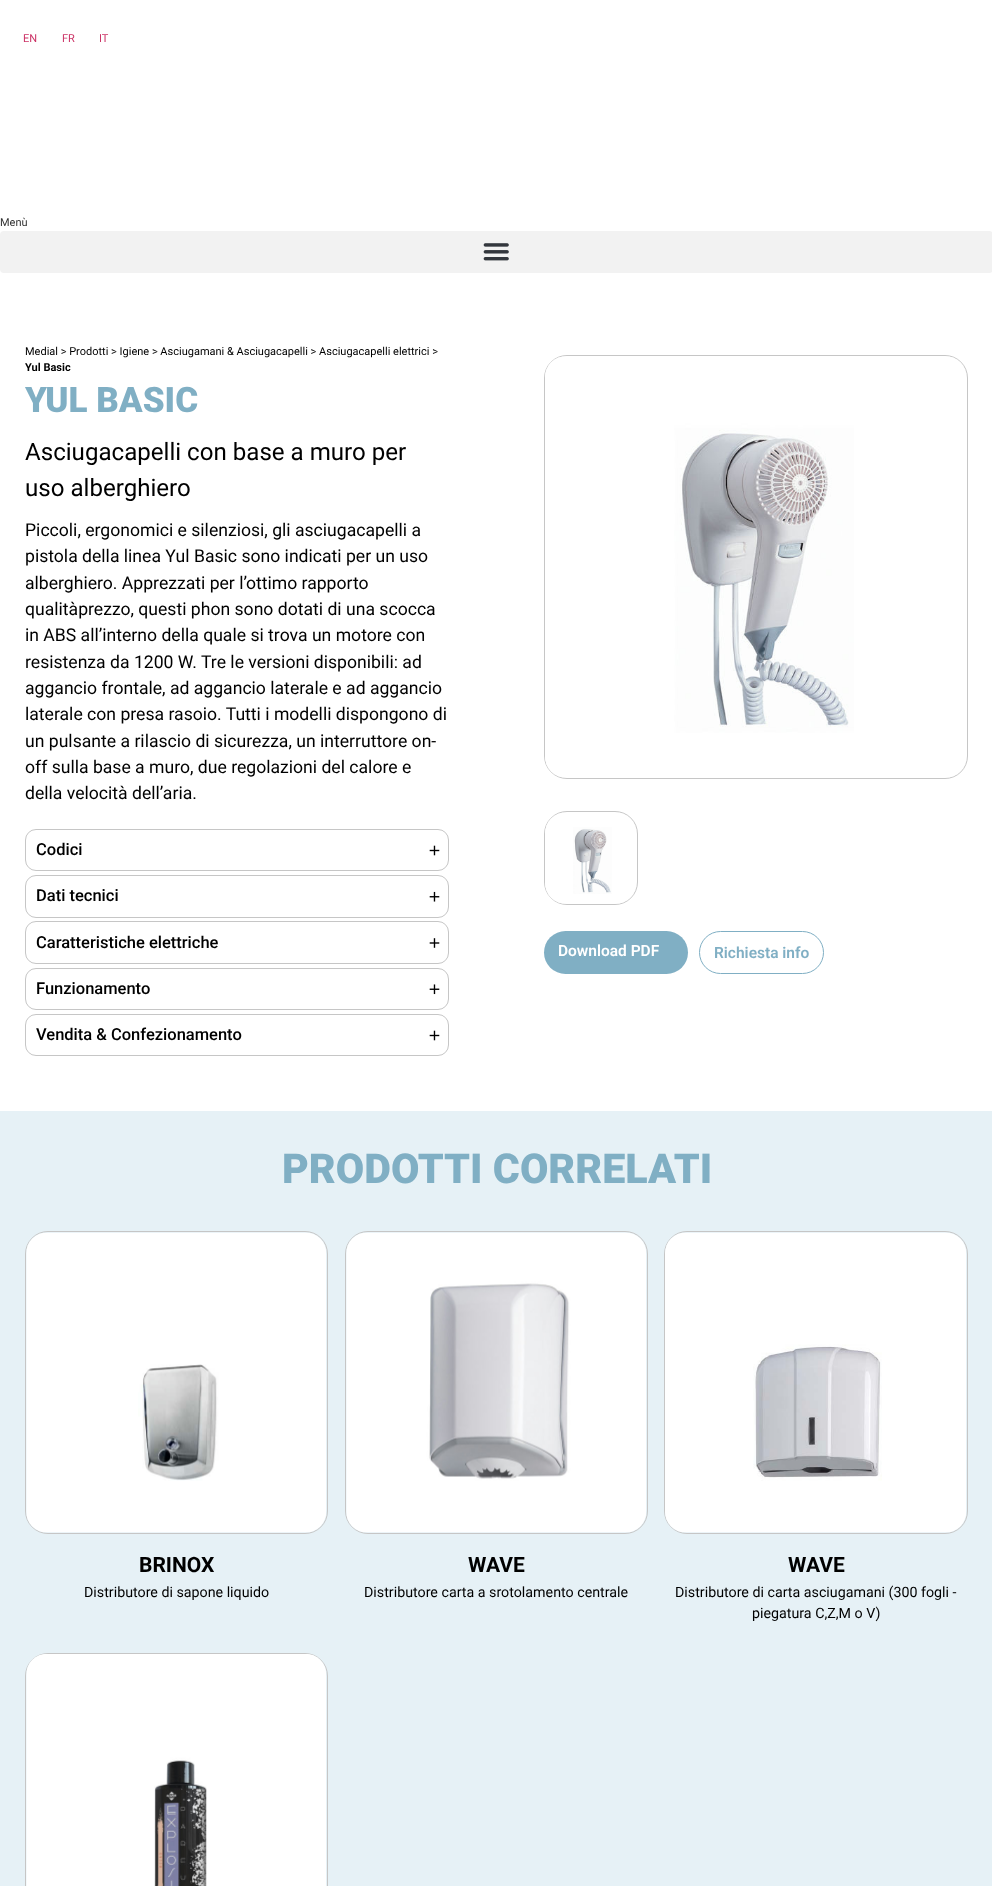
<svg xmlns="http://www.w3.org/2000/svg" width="992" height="1886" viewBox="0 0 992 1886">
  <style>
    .t1 { font: 11px Roboto; fill: #c36; }
    .t2 { font: 11px Roboto; fill: #333; }
    .t3 { font: 11px Roboto; fill: #000; }
    .t4 { font: bold 11px Roboto; fill: #000; }
    .t5 { font: 900 35px Roboto; fill: #80afc4; }
    .t6 { font: 24.1px Roboto; fill: #000; }
    .t7 { font: 17.6px Roboto; fill: #000; }
    .t8 { font: 500 16.5px Roboto; fill: #000; }
    .t9 { font: 600 15.5px Roboto; fill: #fff; }
    .t10 { font: 600 15.5px Roboto; fill: #80afc4; }
    .t11 { font: 900 41.25px Roboto; fill: #80afc4; }
    .t12 { font: bold 21px Roboto; fill: #000; }
    .t13 { font: 14.25px Roboto; fill: #000; }
  </style>
  <rect width="100%" height="100%" fill="#fff"/>
  <text x="23" y="42" class="t1">EN</text>
  <text x="62" y="42" class="t1">FR</text>
  <text x="99" y="42" class="t1">IT</text>
  <text x="0" y="226" class="t2">Menù</text>
  <rect x="0" y="231" width="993" height="42" rx="4" fill="#f2f2f2"/>
  <image x="483" y="243" width="26" height="18" href="images/1.png"/>
  <text x="25" y="355" class="t3">Medial &gt; Prodotti &gt; Igiene &gt; Asciugamani &amp; Asciugacapelli &gt; Asciugacapelli elettrici &gt;</text>
  <text x="25" y="371" class="t4">Yul Basic</text>
  <text x="25" y="412" class="t5">YUL BASIC</text>
  <text x="25" y="460" class="t6">Asciugacapelli con base a muro per</text>
  <text x="25" y="496" class="t6">uso alberghiero</text>
  <text x="25" y="536" class="t7">Piccoli, ergonomici e silenziosi, gli asciugacapelli a</text>
  <text x="25" y="562" class="t7">pistola della linea Yul Basic sono indicati per un uso</text>
  <text x="25" y="589" class="t7">alberghiero. Apprezzati per l’ottimo rapporto</text>
  <text x="25" y="615" class="t7">qualitàprezzo, questi phon sono dotati di una scocca</text>
  <text x="25" y="641" class="t7">in ABS all’interno della quale si trova un motore con</text>
  <text x="25" y="668" class="t7">resistenza da 1200 W. Tre le versioni disponibili: ad</text>
  <text x="25" y="694" class="t7">aggancio frontale, ad aggancio laterale e ad aggancio</text>
  <text x="25" y="720" class="t7">laterale con presa rasoio. Tutti i modelli dispongono di</text>
  <text x="25" y="747" class="t7">un pulsante a rilascio di sicurezza, un interruttore on-</text>
  <text x="25" y="773" class="t7">off sulla base a muro, due regolazioni del calore e</text>
  <text x="25" y="799" class="t7">della velocità dell’aria.</text>
  <rect x="25.5" y="829.5" width="423" height="41" rx="10.5" fill="none" stroke="#c6c6c6"/>
  <text x="36" y="855" class="t8">Codici</text>
  <image x="429" y="845" width="11" height="11" href="images/2.png"/>
  <rect x="25.5" y="875.5" width="423" height="42" rx="10.5" fill="none" stroke="#c6c6c6"/>
  <text x="36" y="901" class="t8">Dati tecnici</text>
  <image x="429" y="891" width="11" height="11" href="images/3.png"/>
  <rect x="25.5" y="921.5" width="423" height="42" rx="10.5" fill="none" stroke="#c6c6c6"/>
  <text x="36" y="948" class="t8">Caratteristiche elettriche</text>
  <image x="429" y="938" width="11" height="10" href="images/4.png"/>
  <rect x="25.5" y="968.5" width="423" height="41" rx="10.5" fill="none" stroke="#c6c6c6"/>
  <text x="36" y="994" class="t8">Funzionamento</text>
  <image x="429" y="984" width="11" height="11" href="images/5.png"/>
  <rect x="25.5" y="1014.5" width="423" height="41" rx="10.5" fill="none" stroke="#c6c6c6"/>
  <text x="36" y="1040" class="t8">Vendita &amp; Confezionamento</text>
  <image x="429" y="1030" width="11" height="11" href="images/2.png"/>
  <rect x="544.5" y="355.5" width="423" height="423" rx="22.5" fill="none" stroke="#c6c6c6"/>
  <image x="545" y="356" width="420" height="422" href="images/6.png"/>
  <rect x="544.5" y="811.5" width="93" height="93" rx="22.5" fill="none" stroke="#c6c6c6"/>
  <image x="545" y="813" width="90" height="91" href="images/7.png"/>
  <rect x="544" y="931" width="144" height="43" rx="21.5" fill="#80afc4"/>
  <text x="558" y="956" class="t9">Download PDF</text>
  <rect x="699.5" y="931.5" width="124" height="42" rx="21" fill="none" stroke="#80afc4"/>
  <text x="714" y="958" class="t10">Richiesta info</text>
  <rect x="0" y="1111" width="992" height="775" fill="#e6f1f6"/>
  <text x="282" y="1183" class="t11">PRODOTTI CORRELATI</text>
  <rect x="25.5" y="1231.5" width="302" height="302" rx="22.5" fill="none" stroke="#c6c6c6"/>
  <image x="26" y="1232" width="300" height="301" href="images/8.png"/>
  <text x="139" y="1572" class="t12">BRINOX</text>
  <text x="84" y="1597" class="t13">Distributore di sapone liquido</text>
  <rect x="345.5" y="1231.5" width="302" height="302" rx="22.5" fill="none" stroke="#c6c6c6"/>
  <image x="346" y="1232" width="300" height="301" href="images/9.png"/>
  <text x="468" y="1572" class="t12">WAVE</text>
  <text x="364" y="1597" class="t13">Distributore carta a srotolamento centrale</text>
  <rect x="664.5" y="1231.5" width="303" height="302" rx="22.5" fill="none" stroke="#c6c6c6"/>
  <image x="665" y="1232" width="301" height="301" href="images/10.png"/>
  <text x="788" y="1572" class="t12">WAVE</text>
  <text x="675" y="1597" class="t13">Distributore di carta asciugamani (300 fogli -</text>
  <text x="752" y="1618" class="t13">piegatura C,Z,M o V)</text>
  <rect x="25.5" y="1653.5" width="302" height="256" rx="22.5" fill="none" stroke="#c6c6c6"/>
  <image x="26" y="1654" width="300" height="232" href="images/11.png"/>
</svg>
